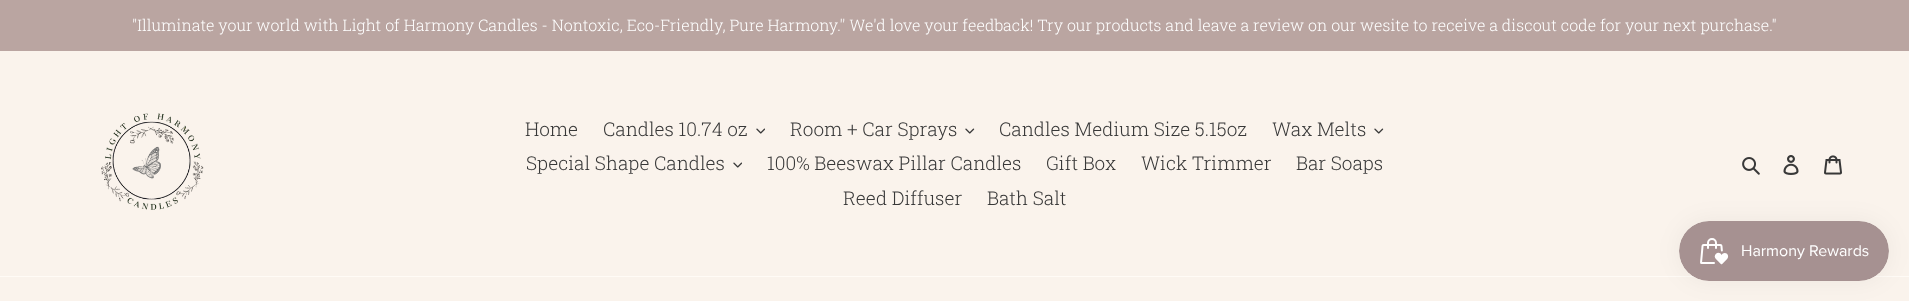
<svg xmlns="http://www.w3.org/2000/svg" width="1909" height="301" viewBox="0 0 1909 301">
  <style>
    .t1 { font: 300 16px Roboto Slab; fill: #fff; }
    .t2 { font: 300 19px Roboto Slab; fill: #383838; }
  </style>
  <rect width="100%" height="100%" fill="#faf3ec"/>
  <rect x="0" y="0" width="1909" height="51" fill="#baa5a1"/>
  <text x="132" y="31" class="t1">"Illuminate your world with Light of Harmony Candles - Nontoxic, Eco-Friendly, Pure Harmony.'' We'd love your feedback! Try our products and leave a review on our wesite to receive a discout code for your next purchase."</text>
  <rect x="0" y="276" width="1909" height="1" fill="#fffbf6"/>
  <image x="101" y="113" width="103" height="97" href="images/1.png"/>
  <text x="525" y="136" class="t2">Home</text>
  <text x="603" y="136" class="t2">Candles 10.74 oz</text>
  <image x="756" y="128" width="9" height="6" href="images/2.png"/>
  <text x="790" y="136" class="t2">Room + Car Sprays</text>
  <image x="965" y="128" width="10" height="6" href="images/3.png"/>
  <text x="999" y="136" class="t2">Candles Medium Size 5.15oz</text>
  <text x="1272" y="136" class="t2">Wax Melts</text>
  <image x="1374" y="128" width="10" height="6" href="images/3.png"/>
  <text x="526" y="170" class="t2">Special Shape Candles</text>
  <image x="733" y="162" width="9" height="6" href="images/2.png"/>
  <text x="767" y="170" class="t2">100% Beeswax Pillar Candles</text>
  <text x="1046" y="170" class="t2">Gift Box</text>
  <text x="1141" y="170" class="t2">Wick Trimmer</text>
  <text x="1296" y="170" class="t2">Bar Soaps</text>
  <text x="843" y="205" class="t2">Reed Diffuser</text>
  <text x="987" y="205" class="t2">Bath Salt</text>
  <image x="1742" y="157" width="18" height="18" href="images/4.png"/>
  <image x="1783" y="155" width="16" height="20" href="images/5.png"/>
  <image x="1824" y="155" width="18" height="20" href="images/6.png"/>
  <rect x="1679" y="221" width="210" height="60" rx="30" fill="#0000000d" filter="blur(12.5px)"/>
  <image x="1679" y="221" width="210" height="60" href="images/7.png"/>
</svg>
